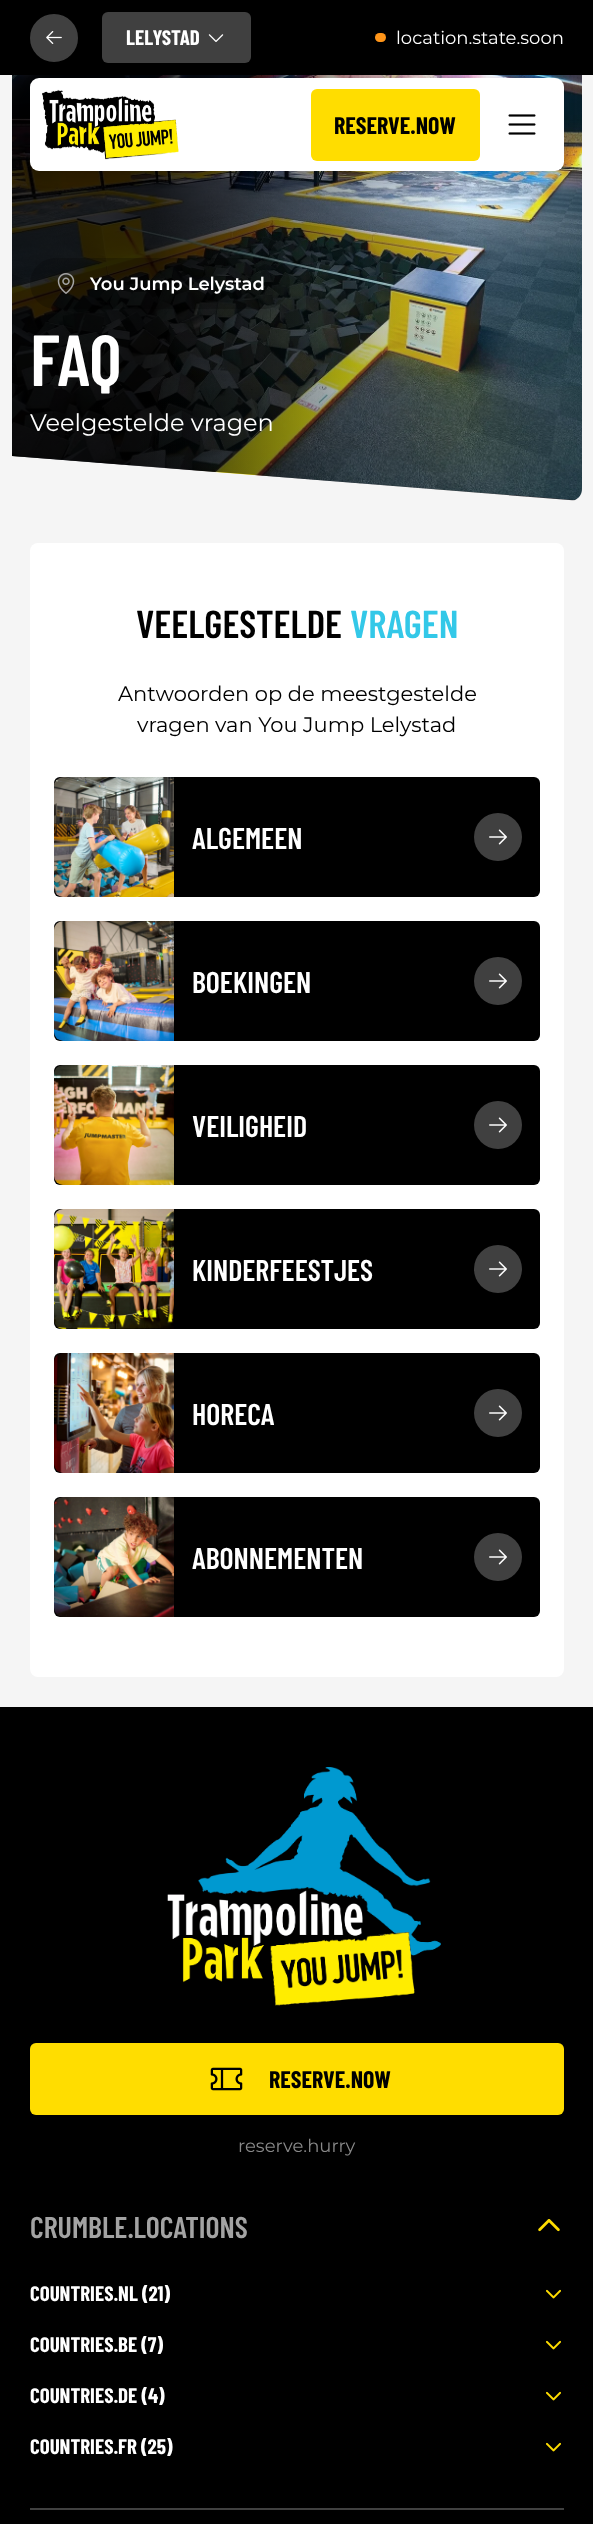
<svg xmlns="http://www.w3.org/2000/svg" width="593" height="2524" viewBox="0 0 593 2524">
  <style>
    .t1 { font: bold 21px Barlow Condensed; fill: #fff; }
    .t2 { font: 18px Montserrat; fill: #fff; }
    .t3 { font: bold 24px Barlow Condensed; fill: #000; }
    .t4 { font: 600 18px Montserrat; fill: #fff; }
    .t5 { font: 600 72px Barlow Condensed; fill: #fff; }
    .t6 { font: 24px Montserrat; fill: #fff; }
    .t7 { font: 600 39px Barlow Condensed; fill: #000; }
    .t8 { font: 600 39px Barlow Condensed; fill: #33c8e8; }
    .t9 { font: 21px Montserrat; fill: #000; }
    .t10 { font: 600 30px Barlow Condensed; fill: #fff; }
    .t11 { font: 18px Montserrat; fill: #898989; }
    .t12 { font: 600 30px Barlow Condensed; fill: #a3a3a3; }
  </style>
  <defs>
    <linearGradient id="g1" gradientUnits="userSpaceOnUse" x1="12" y1="258" x2="582" y2="258"><stop offset="0.25" stop-color="#000" stop-opacity="0.8"/><stop offset="0.79" stop-color="#000" stop-opacity="0"/></linearGradient>
    <linearGradient id="g2" gradientUnits="userSpaceOnUse" x1="-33" y1="138" x2="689" y2="401"><stop offset="0.34" stop-color="#33c8e8" stop-opacity="0"/><stop offset="1" stop-color="#33c8e8" stop-opacity="0.2"/></linearGradient>
  </defs>
  <rect width="100%" height="100%" fill="#f5f5f5"/>
  <image x="12" y="75" width="570" height="426" href="images/5.png"/>
  <path d="M24 15H570C577 15 582 20 582 27V489C582 494 579 499 574 500L12 456V27C12 20 17 15 24 15Z" fill="url(#g1)"/>
  <path d="M24 15H570C577 15 582 20 582 27V489C582 494 579 499 574 500L12 456V27C12 20 17 15 24 15Z" fill="url(#g2)"/>
  <rect x="0" y="0" width="593" height="75" fill="#000"/>
  <circle cx="54" cy="38" r="23" fill="#404040" stroke="#404040" stroke-width="2"/>
  <image x="46" y="31" width="16" height="13" href="images/1.png"/>
  <rect x="102" y="12" width="149" height="51" rx="6" fill="#404040"/>
  <text x="126" y="45" class="t1">LELYSTAD</text>
  <image x="208" y="34" width="16" height="8" href="images/2.png"/>
  <rect x="375" y="33" width="11" height="9" rx="4.5" fill="#ff9519"/>
  <text x="396" y="44" class="t2">location.state.soon</text>
  <rect x="30" y="84" width="534" height="93" rx="9" fill="#0000001a" filter="blur(6px)"/>
  <rect x="30" y="78" width="534" height="93" rx="9" fill="#fff"/>
  <image x="42" y="89" width="137" height="71" href="images/3.png"/>
  <rect x="311" y="89" width="169" height="72" rx="6" fill="#fd0"/>
  <text x="334" y="134" class="t3">RESERVE.NOW</text>
  <image x="508" y="114" width="28" height="21" href="images/4.png"/>
  <rect x="30" y="258" width="260" height="51" rx="25.5" fill="#00000033"/>
  <image x="57" y="273" width="18" height="21" href="images/6.png"/>
  <text x="90" y="290" class="t4">You Jump Lelystad</text>
  <text x="30" y="386" class="t5">FAQ</text>
  <text x="30" y="431" class="t6">Veelgestelde vragen</text>
  <rect x="30" y="543" width="534" height="1134" rx="8" fill="#fff"/>
  <text x="136" y="638" class="t7">VEELGESTELDE</text>
  <text x="350" y="638" class="t8">VRAGEN</text>
  <text x="118" y="701" class="t9">Antwoorden op de meestgestelde</text>
  <text x="137" y="732" class="t9">vragen van You Jump Lelystad</text>
  <rect x="54" y="777" width="486" height="120" rx="6" fill="#000"/>
  <image x="54" y="777" width="120" height="120" href="images/7.png"/>
  <text x="192" y="849" class="t10">ALGEMEEN</text>
  <circle cx="498" cy="837" r="24" fill="#404040"/>
  <image x="489" y="829" width="18" height="16" href="images/8.png"/>
  <rect x="54" y="921" width="486" height="120" rx="6" fill="#000"/>
  <image x="54" y="921" width="120" height="120" href="images/9.png"/>
  <text x="192" y="993" class="t10">BOEKINGEN</text>
  <circle cx="498" cy="981" r="24" fill="#404040"/>
  <image x="489" y="973" width="18" height="16" href="images/8.png"/>
  <rect x="54" y="1065" width="486" height="120" rx="6" fill="#000"/>
  <image x="54" y="1065" width="120" height="120" href="images/10.png"/>
  <text x="192" y="1137" class="t10">VEILIGHEID</text>
  <circle cx="498" cy="1125" r="24" fill="#404040"/>
  <image x="489" y="1117" width="18" height="16" href="images/8.png"/>
  <rect x="54" y="1209" width="486" height="120" rx="6" fill="#000"/>
  <image x="54" y="1209" width="120" height="120" href="images/11.png"/>
  <text x="192" y="1281" class="t10">KINDERFEESTJES</text>
  <circle cx="498" cy="1269" r="24" fill="#404040"/>
  <image x="489" y="1261" width="18" height="16" href="images/8.png"/>
  <rect x="54" y="1353" width="486" height="120" rx="6" fill="#000"/>
  <image x="54" y="1353" width="120" height="120" href="images/12.png"/>
  <text x="192" y="1425" class="t10">HORECA</text>
  <circle cx="498" cy="1413" r="24" fill="#404040"/>
  <image x="489" y="1405" width="18" height="16" href="images/8.png"/>
  <rect x="54" y="1497" width="486" height="120" rx="6" fill="#000"/>
  <image x="54" y="1497" width="120" height="120" href="images/13.png"/>
  <text x="192" y="1569" class="t10">ABONNEMENTEN</text>
  <circle cx="498" cy="1557" r="24" fill="#404040"/>
  <image x="489" y="1549" width="18" height="16" href="images/8.png"/>
  <rect x="0" y="1707" width="593" height="817" fill="#000"/>
  <image x="167" y="1767" width="274" height="239" href="images/14.png"/>
  <rect x="30" y="2043" width="534" height="72" rx="6" fill="#fd0"/>
  <image x="210" y="2067" width="33" height="24" href="images/15.png"/>
  <text x="269" y="2088" class="t3">RESERVE.NOW</text>
  <text x="238" y="2152" class="t11">reserve.hurry</text>
  <rect x="30" y="2508" width="534" height="2" fill="#404040"/>
  <text x="30" y="2238" class="t12">CRUMBLE.LOCATIONS</text>
  <image x="538" y="2219" width="22" height="13" href="images/16.png"/>
  <text x="30" y="2301" class="t1">COUNTRIES.NL (21)</text>
  <image x="546" y="2289" width="15" height="10" href="images/17.png"/>
  <text x="30" y="2352" class="t1">COUNTRIES.BE (7)</text>
  <image x="546" y="2340" width="15" height="10" href="images/17.png"/>
  <text x="30" y="2403" class="t1">COUNTRIES.DE (4)</text>
  <image x="546" y="2391" width="15" height="10" href="images/17.png"/>
  <text x="30" y="2454" class="t1">COUNTRIES.FR (25)</text>
  <image x="546" y="2442" width="15" height="10" href="images/17.png"/>
</svg>
